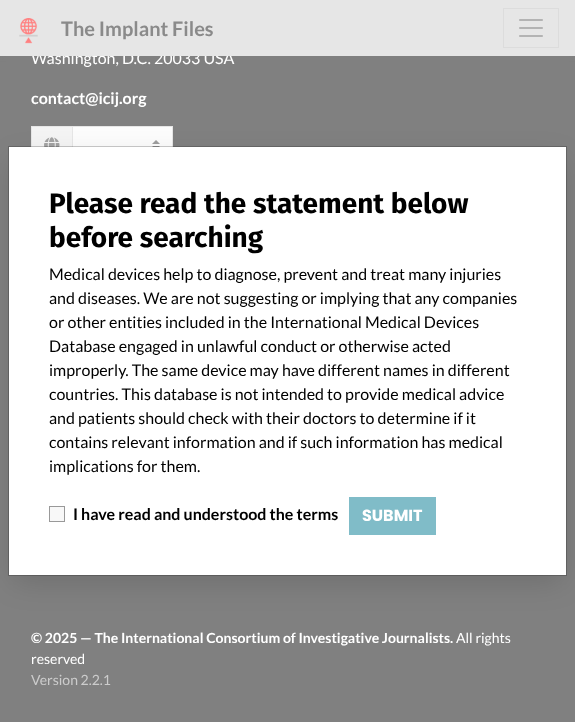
<svg xmlns="http://www.w3.org/2000/svg" width="575" height="722" viewBox="0 0 575 722">
  <style>
    .t1 { font: 16px Lato; fill: #fff; }
    .t2 { font: bold 20px Lato; fill: #8a8a8a; }
    .t3 { font: bold 16px Lato; fill: #fff; }
    .t4 { font: bold 14px Lato; fill: #fff; }
    .t5 { font: 14px Lato; fill: #fff; }
    .t6 { font: 14px Lato; fill: #ccc; }
    .t7 { font: bold 28px Fira Sans; fill: #000; }
    .t8 { font: 16px Lato; fill: #000; }
    .t9 { font: bold 16px Lato; fill: #000; }
    .t10 { font: bold 16px Poppins; fill: #fff; }
  </style>
  <rect width="100%" height="100%" fill="#808080"/>
  <rect x="0" y="0" width="575" height="56" fill="#8080801a" filter="blur(3px)"/>
  <text x="31" y="64" class="t1">Washington, D.C. 20033 USA</text>
  <rect x="0" y="0" width="575" height="56" fill="#e6e6e6"/>
  <image x="19" y="18" width="19" height="26" href="images/1.png"/>
  <text x="61" y="36" class="t2">The Implant Files</text>
  <rect x="503.5" y="8.5" width="55" height="39" fill="none" stroke="#dcdcdc"/>
  <image x="519" y="19" width="24" height="18" href="images/2.png"/>
  <text x="31" y="104" class="t3">contact@icij.org</text>
  <rect x="32" y="127" width="40" height="20" fill="#f4f4f4"/>
  <rect x="31.5" y="126.5" width="41" height="37" fill="none" stroke="#e6e6e6"/>
  <image x="44" y="137" width="16" height="10" href="images/3.png"/>
  <rect x="73" y="127" width="99" height="20" fill="#fcfcfc"/>
  <image x="152" y="140" width="8" height="7" href="images/4.png"/>
  <rect x="72.5" y="126.5" width="100" height="37" fill="none" stroke="#e6e6e6"/>
  <text x="31" y="643" class="t4">© 2025 — The International Consortium of Investigative Journalists.</text>
  <text x="456" y="643" class="t5">All rights</text>
  <text x="31" y="664" class="t5">reserved</text>
  <text x="31" y="685" class="t6">Version 2.2.1</text>
  <rect x="13" y="161" width="549" height="420" fill="#00000026" filter="blur(15px)"/>
  <rect x="9" y="147" width="557" height="428" fill="#fff"/>
  <rect x="8.5" y="146.5" width="558" height="429" fill="none" stroke="#00000033"/>
  <text x="49" y="213" class="t7">Please read the statement below</text>
  <text x="49" y="247" class="t7">before searching</text>
  <text x="49" y="280" class="t8">Medical devices help to diagnose, prevent and treat many injuries</text>
  <text x="49" y="304" class="t8">and diseases. We are not suggesting or implying that any companies</text>
  <text x="49" y="328" class="t8">or other entities included in the International Medical Devices</text>
  <text x="49" y="352" class="t8">Database engaged in unlawful conduct or otherwise acted</text>
  <text x="49" y="376" class="t8">improperly. The same device may have different names in different</text>
  <text x="49" y="400" class="t8">countries. This database is not intended to provide medical advice</text>
  <text x="49" y="424" class="t8">and patients should check with their doctors to determine if it</text>
  <text x="49" y="448" class="t8">contains relevant information and if such information has medical</text>
  <text x="49" y="472" class="t8">implications for them.</text>
  <rect x="49.5" y="506.5" width="15" height="15" fill="#f8f8f8" stroke="#999"/>
  <text x="73" y="520" class="t9">I have read and understood the terms</text>
  <rect x="349" y="497" width="87" height="38" fill="#80bcc8"/>
  <text x="362" y="521" class="t10">SUBMIT</text>
</svg>
